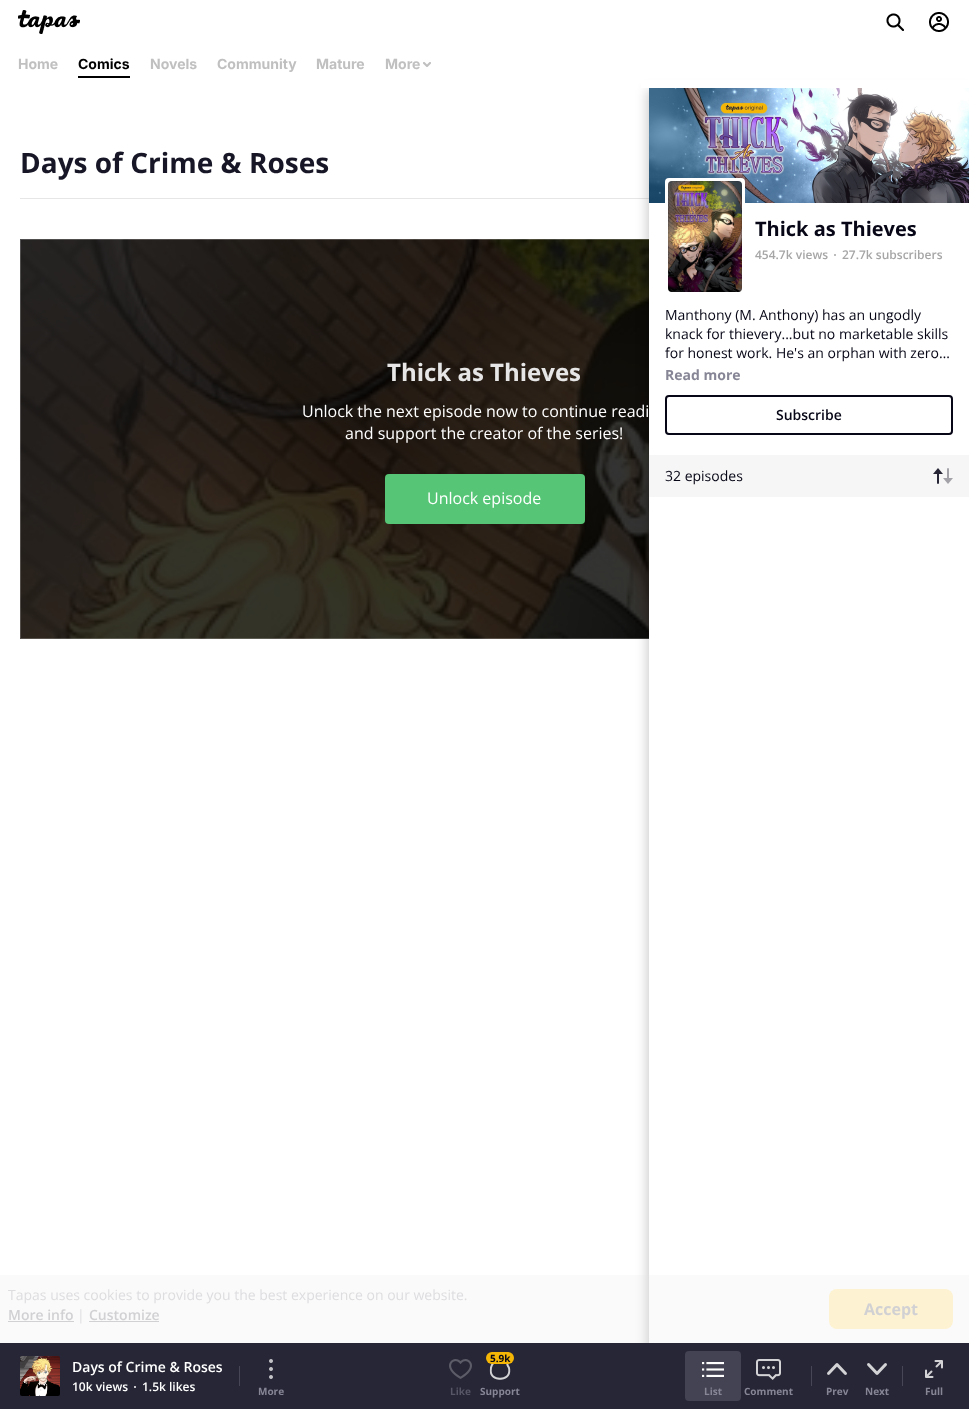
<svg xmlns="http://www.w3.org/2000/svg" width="969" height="1409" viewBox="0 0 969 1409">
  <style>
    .t1 { font: bold 14px Inter; fill: #c0c0c0; }
    .t2 { font: bold 14px Inter; fill: #000; }
    .t3 { font: bold 28px Open Sans; fill: #161626; }
    .t4 { font: bold 24px Open Sans; fill: #e6e6e6; }
    .t5 { font: 16px Open Sans; fill: #fff; }
    .t6 { font: bold 20px Open Sans; fill: #060616; }
    .t7 { font: 600 12px Open Sans; fill: #a6a6a6; }
    .t8 { font: 14px Open Sans; fill: #060616; }
    .t9 { font: bold 14px Open Sans; fill: #868696; }
    .t10 { font: 600 14px Open Sans; fill: #060616; }
    .t11 { font: 600 14px Open Sans; fill: #fff; }
    .t12 { font: 600 12px Open Sans; fill: #fff; }
    .t13 { font: bold 10px Open Sans; fill: #868696; }
    .t14 { font: bold 10px Open Sans; fill: #565666; }
    .t15 { font: bold 10px Open Sans; fill: #060616; }
    .t16 { font: 14px Open Sans; fill: #dddde0; }
    .t17 { font: 600 14px Open Sans; fill: #d1d1d4; }
    .t18 { font: bold 16px Open Sans; fill: #d1d1d4; }
  </style>
  <rect width="100%" height="100%" fill="#fff"/>
  <rect x="20" y="198" width="629" height="1" fill="#e6e6e6"/>
  <image x="20" y="239" width="629" height="400" href="images/5.png"/>
  <rect x="20.5" y="239.5" width="928" height="399" fill="none" stroke="#ffffff33"/>
  <rect x="647" y="90" width="320" height="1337" fill="#00000033" filter="blur(6px)"/>
  <rect x="641" y="80" width="328" height="8" fill="#fff"/>
  <image x="18" y="10" width="62" height="24" href="images/1.png"/>
  <image x="886" y="13" width="18" height="18" href="images/2.png"/>
  <image x="929" y="12" width="20" height="20" href="images/3.png"/>
  <text x="18" y="69" class="t1">Home</text>
  <text x="78" y="69" class="t2">Comics</text>
  <rect x="78" y="76" width="52" height="2" fill="#000"/>
  <text x="150" y="69" class="t1">Novels</text>
  <text x="217" y="69" class="t1">Community</text>
  <text x="316" y="69" class="t1">Mature</text>
  <text x="385" y="69" class="t1">More</text>
  <image x="423" y="62" width="8" height="5" href="images/4.png"/>
  <text x="20" y="173" class="t3">Days of Crime &amp; Roses</text>
  <text x="387" y="381" class="t4">Thick as Thieves</text>
  <text x="302" y="417" class="t5">Unlock the next episode now to continue readi</text>
  <text x="345" y="439" class="t5">and support the creator of the series!</text>
  <rect x="385" y="474" width="200" height="50" rx="4" fill="#56c676"/>
  <text x="427" y="504" class="t5">Unlock episode</text>
  <rect x="649" y="203" width="320" height="1140" fill="#fff"/>
  <image x="649" y="88" width="320" height="115" href="images/6.png"/>
  <rect x="665" y="178" width="80" height="117" rx="4" fill="#fff"/>
  <image x="668" y="181" width="74" height="111" href="images/7.png"/>
  <rect x="668.5" y="181.5" width="73" height="110" rx="3.5" fill="none" stroke="#0606161a"/>
  <text x="755" y="236" class="t6">Thick as Thieves</text>
  <text x="755" y="259" class="t7">454.7k views</text>
  <circle cx="835" cy="255" r="1" fill="#a6a6a6"/>
  <text x="842" y="259" class="t7">27.7k subscribers</text>
  <text x="665" y="320" class="t8">Manthony (M. Anthony) has an ungodly</text>
  <text x="665" y="339" class="t8">knack for thievery...but no marketable skills</text>
  <text x="665" y="358" class="t8">for honest work. He's an orphan with zero…</text>
  <text x="665" y="380" class="t9">Read more</text>
  <rect x="666" y="396" width="286" height="38" rx="3" fill="none" stroke="#060616" stroke-width="2"/>
  <text x="776" y="420" class="t10">Subscribe</text>
  <rect x="649" y="455" width="320" height="42" fill="#f6f6f6"/>
  <text x="665" y="481" class="t8">32 episodes</text>
  <image x="933" y="468" width="10" height="16" href="images/8.png"/>
  <image x="943" y="468" width="10" height="16" href="images/9.png"/>
  <rect x="0" y="1343" width="969" height="66" fill="#262636"/>
  <image x="20" y="1356" width="40" height="40" href="images/10.png"/>
  <text x="72" y="1372" class="t11">Days of Crime &amp; Roses</text>
  <text x="72" y="1391" class="t12">10k views</text>
  <circle cx="135" cy="1387" r="1" fill="#fff"/>
  <text x="142" y="1391" class="t12">1.5k likes</text>
  <rect x="239" y="1366" width="1" height="20" fill="#464656"/>
  <image x="269" y="1359" width="4" height="20" href="images/11.png"/>
  <text x="258" y="1395" class="t13">More</text>
  <image x="449" y="1359" width="23" height="20" href="images/12.png"/>
  <text x="450" y="1395" class="t14">Like</text>
  <image x="489" y="1363" width="22" height="17" href="images/13.png"/>
  <rect x="486" y="1352" width="28" height="12" rx="6" fill="#f6b606"/>
  <text x="490" y="1362" class="t15">5.9k</text>
  <text x="480" y="1395" class="t13">Support</text>
  <rect x="811" y="1366" width="1" height="20" fill="#464656"/>
  <rect x="902" y="1366" width="1" height="20" fill="#464656"/>
  <rect x="685" y="1351" width="56" height="50" rx="4" fill="#434353"/>
  <image x="702" y="1362" width="22" height="15" href="images/14.png"/>
  <text x="704" y="1395" class="t13">List</text>
  <image x="756" y="1359" width="25" height="21" href="images/15.png"/>
  <text x="744" y="1395" class="t13">Comment</text>
  <image x="827" y="1363" width="20" height="12" href="images/16.png"/>
  <text x="826" y="1395" class="t13">Prev</text>
  <image x="867" y="1363" width="20" height="12" href="images/17.png"/>
  <text x="865" y="1395" class="t13">Next</text>
  <image x="925" y="1360" width="18" height="18" href="images/18.png"/>
  <text x="925" y="1395" class="t13">Full</text>
  <rect x="0" y="1275" width="969" height="68" fill="#e6e6e62e"/>
  <text x="8" y="1300" class="t16">Tapas uses cookies to provide you the best experience on our website.</text>
  <text x="8" y="1320" class="t17">More info</text>
  <rect x="8" y="1321" width="66" height="1" fill="#d1d1d4"/>
  <text x="77" y="1320" class="t16">|</text>
  <text x="89" y="1320" class="t17">Customize</text>
  <rect x="89" y="1321" width="70" height="1" fill="#d1d1d4"/>
  <rect x="829" y="1289" width="124" height="40" rx="8" fill="#fdf2d1"/>
  <text x="864" y="1315" class="t18">Accept</text>
</svg>
